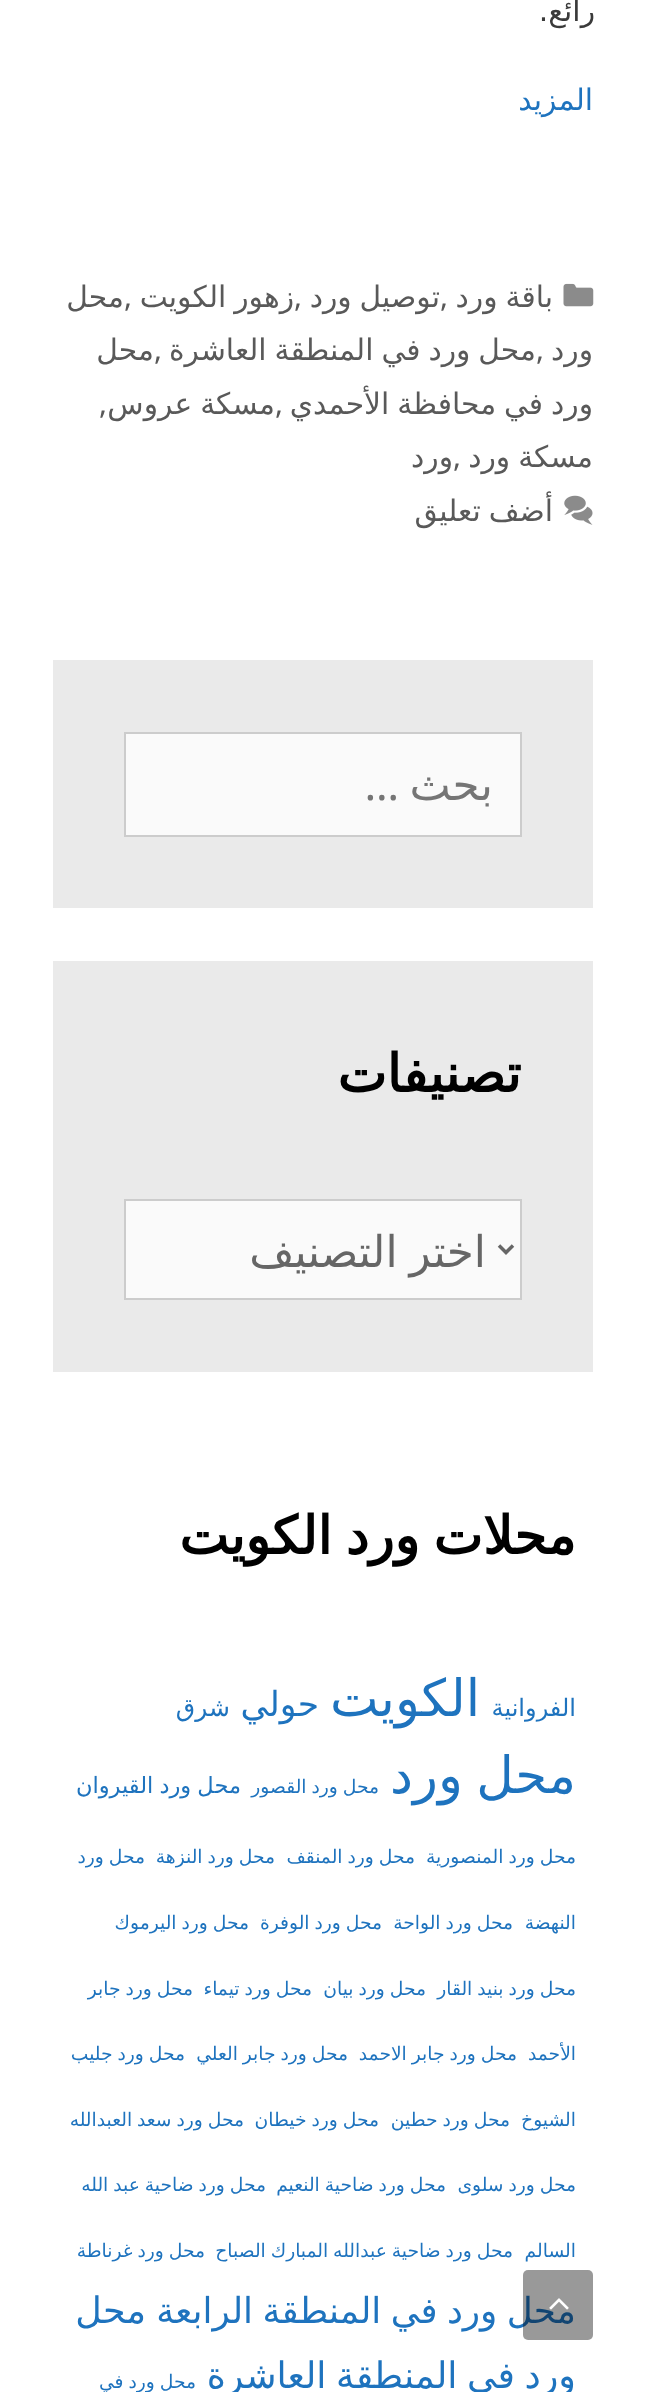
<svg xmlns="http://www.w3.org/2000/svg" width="645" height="2392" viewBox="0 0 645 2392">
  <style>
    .t1 { font: 29.75px DejaVu Sans; direction: rtl; fill: #3a3a3a; }
    .t2 { font: 29.75px DejaVu Sans; direction: rtl; fill: #1e73be; }
    .t3 { font: 29.75px DejaVu Sans; direction: rtl; fill: #595959; }
    .t4 { font: 29.75px Noto Sans; fill: #595959; }
    .t5 { font: 43.75px DejaVu Sans; direction: rtl; fill: #757575; }
    .t6 { font: 43.75px Noto Sans; direction: rtl; fill: #757575; }
    .t7 { font: bold 52.5px DejaVu Sans; direction: rtl; fill: #000; }
    .t8 { font: 43.75px DejaVu Sans; direction: rtl; fill: #666; }
    .t9 { font: 24px DejaVu Sans; direction: rtl; fill: #1e73be; }
    .t10 { font: 51.5px DejaVu Sans; direction: rtl; fill: #1e73be; }
    .t11 { font: 34.5px DejaVu Sans; direction: rtl; fill: #1e73be; }
    .t12 { font: 25px DejaVu Sans; direction: rtl; fill: #1e73be; }
    .t13 { font: 18.7px DejaVu Sans; direction: rtl; fill: #1e73be; }
    .t14 { font: 22.5px DejaVu Sans; direction: rtl; fill: #1e73be; }
    .t15 { font: 35.75px DejaVu Sans; direction: rtl; fill: #1e73be; }
    .t16 { font: 36.5px DejaVu Sans; direction: rtl; fill: #1e73be; }
  </style>
  <rect width="100%" height="100%" fill="#fff"/>
  <text x="595" y="21" class="t1">رائع.</text>
  <text x="593" y="110" class="t2">المزيد</text>
  <image x="563" y="283" width="31" height="24" href="images/1.png"/>
  <text x="553" y="307" word-spacing="-1.5" class="t3">باقة ورد</text>
  <text x="440" y="307" class="t4">,</text>
  <text x="440" y="307" word-spacing="-1.5" class="t3">توصيل ورد</text>
  <text x="294" y="307" class="t4">,</text>
  <text x="294" y="307" word-spacing="-1.5" class="t3">زهور الكويت</text>
  <text x="124" y="307" class="t4">,</text>
  <text x="124" y="307" class="t3">محل</text>
  <text x="593" y="360" class="t3">ورد</text>
  <text x="536" y="360" class="t4">,</text>
  <text x="536" y="360" word-spacing="-1.5" class="t3">محل ورد في المنطقة العاشرة</text>
  <text x="154" y="360" class="t4">,</text>
  <text x="154" y="360" class="t3">محل</text>
  <text x="593" y="414" word-spacing="-1.5" class="t3">ورد في محافظة الأحمدي</text>
  <text x="275" y="414" class="t4">,</text>
  <text x="275" y="414" word-spacing="-1.5" class="t3">مسكة عروس</text>
  <text x="99" y="414" class="t4">,</text>
  <text x="593" y="467" word-spacing="-1.5" class="t3">مسكة ورد</text>
  <text x="453" y="467" class="t4">,</text>
  <text x="453" y="467" class="t3">ورد</text>
  <image x="564" y="495" width="29" height="30" href="images/2.png"/>
  <text x="553" y="521" word-spacing="-1.5" class="t3">أضف تعليق</text>
  <rect x="53" y="660" width="540" height="248" fill="#eaeaea"/>
  <rect x="125" y="733" width="396" height="103" fill="#fafafa" stroke="#ccc" stroke-width="2"/>
  <text x="493" y="800" class="t5">بحث</text>
  <text x="399" y="800" class="t6">…</text>
  <rect x="53" y="961" width="540" height="411" fill="#eaeaea"/>
  <text x="521" y="1092" class="t7">تصنيفات</text>
  <rect x="125" y="1200" width="396" height="99" fill="#fafafa" stroke="#ccc" stroke-width="2"/>
  <path d="M499 1245.5L506 1252.5L513 1245.5" fill="none" stroke="#666" stroke-width="3.5"/>
  <text x="486" y="1267" word-spacing="-2" class="t8">اختر التصنيف</text>
  <text x="576" y="1554" word-spacing="-3" class="t7">محلات ورد الكويت</text>
  <text x="576" y="1716" class="t9">الفروانية</text>
  <text x="480" y="1716" class="t10">الكويت</text>
  <text x="319" y="1716" class="t11">حولي</text>
  <text x="230" y="1716" class="t12">شرق</text>
  <text x="576" y="1793" word-spacing="-3" class="t10">محل ورد</text>
  <text x="379" y="1793" word-spacing="-1" class="t13">محل ورد القصور</text>
  <text x="241" y="1793" word-spacing="-1" class="t14">محل ورد القيروان</text>
  <text x="576" y="1863" word-spacing="-1" class="t13">محل ورد المنصورية</text>
  <text x="415" y="1863" word-spacing="-1" class="t13">محل ورد المنقف</text>
  <text x="275" y="1863" word-spacing="-1" class="t13">محل ورد النزهة</text>
  <text x="145" y="1863" word-spacing="-1" class="t13">محل ورد</text>
  <text x="576" y="1929" class="t13">النهضة</text>
  <text x="513" y="1929" word-spacing="-1" class="t13">محل ورد الواحة</text>
  <text x="382" y="1929" word-spacing="-1" class="t13">محل ورد الوفرة</text>
  <text x="249" y="1929" word-spacing="-1" class="t13">محل ورد اليرموك</text>
  <text x="576" y="1995" word-spacing="-1" class="t13">محل ورد بنيد القار</text>
  <text x="426" y="1995" word-spacing="-1" class="t13">محل ورد بيان</text>
  <text x="312" y="1995" word-spacing="-1" class="t13">محل ورد تيماء</text>
  <text x="193" y="1995" word-spacing="-1" class="t13">محل ورد جابر</text>
  <text x="576" y="2060" class="t13">الأحمد</text>
  <text x="517" y="2060" word-spacing="-1" class="t13">محل ورد جابر الاحمد</text>
  <text x="348" y="2060" word-spacing="-1" class="t13">محل ورد جابر العلي</text>
  <text x="185" y="2060" word-spacing="-1" class="t13">محل ورد جليب</text>
  <text x="576" y="2126" class="t13">الشيوخ</text>
  <text x="510" y="2126" word-spacing="-1" class="t13">محل ورد حطين</text>
  <text x="379" y="2126" word-spacing="-1" class="t13">محل ورد خيطان</text>
  <text x="244" y="2126" word-spacing="-1" class="t13">محل ورد سعد العبدالله</text>
  <text x="576" y="2191" word-spacing="-1" class="t13">محل ورد سلوى</text>
  <text x="446" y="2191" word-spacing="-1" class="t13">محل ورد ضاحية النعيم</text>
  <text x="266" y="2191" word-spacing="-1" class="t13">محل ورد ضاحية عبد الله</text>
  <text x="576" y="2257" class="t13">السالم</text>
  <text x="513" y="2257" word-spacing="-1" class="t13">محل ورد ضاحية عبدالله المبارك الصباح</text>
  <text x="205" y="2257" word-spacing="-1" class="t13">محل ورد غرناطة</text>
  <text x="576" y="2323" word-spacing="-2" class="t15">محل ورد في المنطقة الرابعة</text>
  <text x="146" y="2323" class="t16">محل</text>
  <text x="576" y="2388" word-spacing="-2" class="t16">ورد في المنطقة العاشرة</text>
  <text x="196" y="2388" word-spacing="-1" class="t13">محل ورد في</text>
  <rect x="523" y="2270" width="70" height="70" rx="5" fill="#00000066"/>
  <image x="549" y="2298" width="20" height="12" href="images/3.png"/>
</svg>
